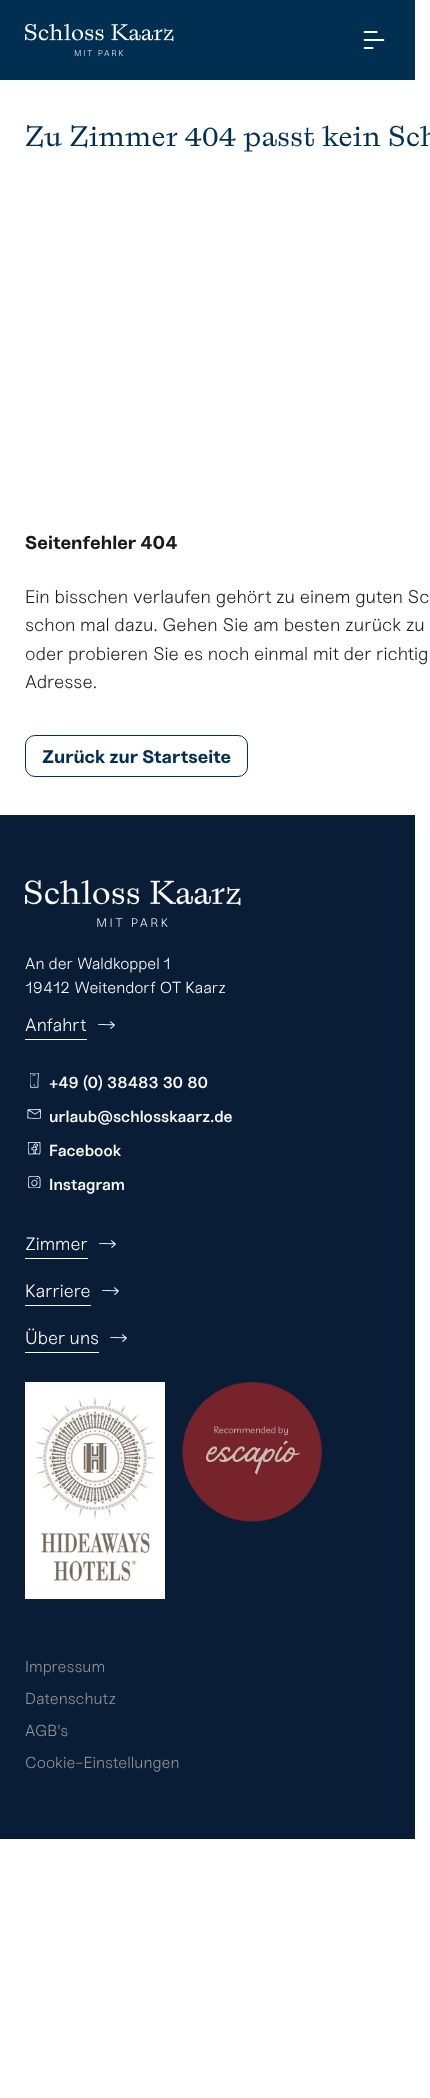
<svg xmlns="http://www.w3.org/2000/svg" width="430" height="2098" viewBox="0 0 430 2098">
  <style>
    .t1 { font: 29.1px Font; fill: #002f51; }
    .t2 { font: bold 18.75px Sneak; fill: #191919; }
    .t3 { font: 300 18.4px Sneak; fill: #191919; }
    .t4 { font: bold 18.4px Sneak; fill: #002f51; }
    .t5 { font: 300 16px Sneak; fill: #fff; }
    .t6 { font: 300 18px Sneak; fill: #fff; }
    .t7 { font: 500 16px Sneak; fill: #fff; }
    .t8 { font: 300 16px Sneak; fill: #969697; }
  </style>
  <rect width="100%" height="100%" fill="#fff"/>
  <rect x="0" y="0" width="415" height="80" fill="#002f51"/>
  <image x="25" y="23" width="149" height="33" href="images/1.png"/>
  <image x="363" y="31" width="22" height="18" href="images/2.png"/>
  <text x="25" y="146" class="t1">Zu Zimmer 404 passt kein Sch</text>
  <text x="25" y="549" class="t2">Seitenfehler 404</text>
  <text x="25" y="603" class="t3">Ein bisschen verlaufen gehört zu einem guten Sc</text>
  <text x="25" y="631" class="t3">schon mal dazu. Gehen Sie am besten zurück zu</text>
  <text x="25" y="660" class="t3">oder probieren Sie es noch einmal mit der richtig</text>
  <text x="25" y="688" class="t3">Adresse.</text>
  <rect x="25.5" y="735.5" width="222" height="41" rx="9.5" fill="none" stroke="#002f51"/>
  <text x="42" y="763" class="t4">Zurück zur Startseite</text>
  <rect x="0" y="815" width="415" height="1024" fill="#0a1d37"/>
  <image x="25" y="880" width="216" height="47" href="images/3.png"/>
  <text x="25" y="969" class="t5">An der Waldkoppel 1</text>
  <text x="25" y="993" class="t5">19412 Weitendorf OT Kaarz</text>
  <text x="25" y="1031" class="t6">Anfahrt</text>
  <rect x="25" y="1039" width="62" height="1" fill="#fff"/>
  <image x="98" y="1021" width="17" height="8" href="images/4.png"/>
  <image x="30" y="1073" width="9" height="15" href="images/5.png"/>
  <text x="49" y="1088" class="t7">+49 (0) 38483 30 80</text>
  <image x="27" y="1109" width="14" height="10" href="images/6.png"/>
  <text x="49" y="1122" class="t7">urlaub@schlosskaarz.de</text>
  <image x="28" y="1142" width="13" height="13" href="images/7.png"/>
  <text x="49" y="1156" class="t7">Facebook</text>
  <image x="28" y="1176" width="13" height="12" href="images/8.png"/>
  <text x="49" y="1190" class="t7">Instagram</text>
  <text x="25" y="1250" class="t6">Zimmer</text>
  <rect x="25" y="1258" width="63" height="1" fill="#fff"/>
  <image x="99" y="1240" width="17" height="8" href="images/4.png"/>
  <text x="25" y="1297" class="t6">Karriere</text>
  <rect x="25" y="1305" width="66" height="1" fill="#fff"/>
  <image x="102" y="1287" width="17" height="8" href="images/4.png"/>
  <text x="25" y="1344" class="t6">Über uns</text>
  <rect x="25" y="1352" width="74" height="1" fill="#fff"/>
  <image x="110" y="1334" width="17" height="8" href="images/4.png"/>
  <image x="25" y="1382" width="140" height="217" href="images/9.png"/>
  <image x="182" y="1382" width="140" height="140" href="images/10.png"/>
  <text x="25" y="1672" class="t8">Impressum</text>
  <text x="25" y="1704" class="t8">Datenschutz</text>
  <text x="25" y="1736" class="t8">AGB's</text>
  <text x="25" y="1768" class="t8">Cookie-Einstellungen</text>
</svg>
